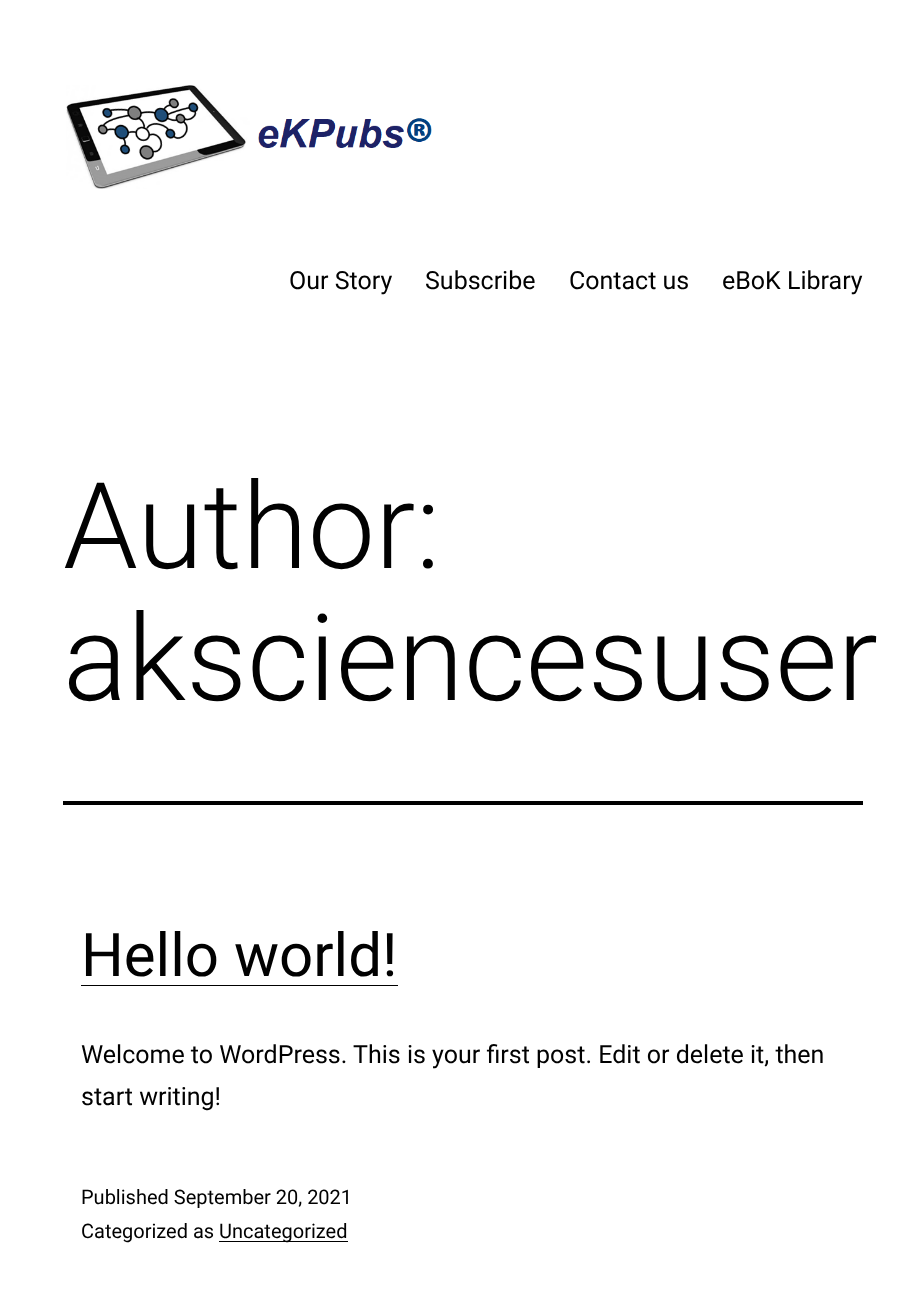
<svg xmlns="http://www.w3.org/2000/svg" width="924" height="1309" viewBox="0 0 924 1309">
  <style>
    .t1 { font: 25px Roboto; fill: #010101; }
    .t2 { font: 300 120px Roboto; fill: #010101; }
    .t3 { font: 60px Roboto; fill: #010101; }
    .t4 { font: 20px Roboto; fill: #010101; }
  </style>
  <rect width="100%" height="100%" fill="#fff"/>
  <image x="66" y="85" width="366" height="104" href="images/1.png"/>
  <text x="289" y="289" class="t1">Our Story</text>
  <text x="425" y="289" class="t1">Subscribe</text>
  <text x="569" y="289" class="t1">Contact us</text>
  <text x="722" y="289" class="t1">eBoK Library</text>
  <rect x="63" y="801" width="800" height="4" fill="#000"/>
  <text x="63" y="568" class="t2">Author:</text>
  <text x="63" y="700" class="t2">aksciencesuser</text>
  <text x="81" y="976" class="t3">Hello world!</text>
  <rect x="81" y="985" width="317" height="1" fill="#000"/>
  <text x="81" y="1063" class="t1">Welcome to WordPress. This is your first post. Edit or delete it, then</text>
  <text x="81" y="1105" class="t1">start writing!</text>
  <text x="81" y="1204" class="t4">Published September 20, 2021</text>
  <text x="81" y="1238" class="t4">Categorized as</text>
  <rect x="219" y="1241" width="129" height="1" fill="#000"/>
  <text x="219" y="1238" class="t4">Uncategorized</text>
</svg>
